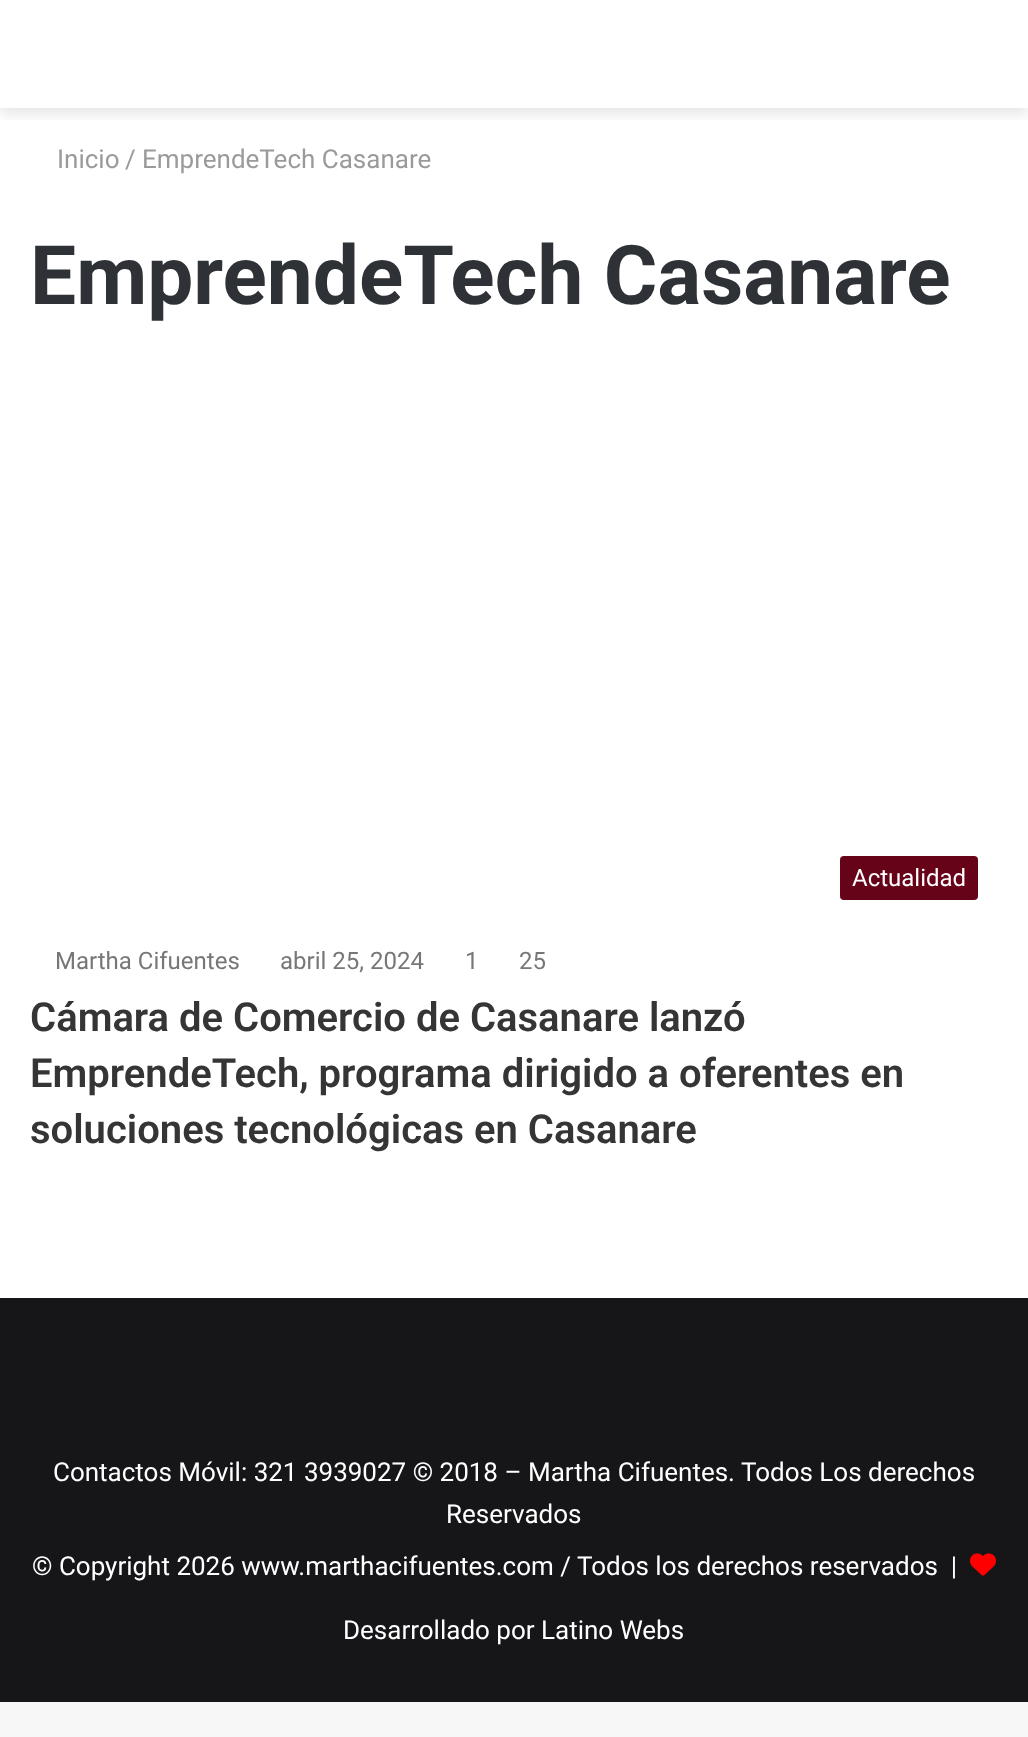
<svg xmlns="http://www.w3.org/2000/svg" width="1028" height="1737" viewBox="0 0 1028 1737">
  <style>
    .t1 { font: 26px Roboto; fill: #9a9a9a; }
    .t2 { font: bold 82px Roboto; fill: #2e3136; }
    .t3 { font: 24px Roboto; fill: #fff; }
    .t4 { font: 24px Roboto; fill: #777; }
    .t5 { font: 600 40px Roboto; fill: #353535; }
    .t6 { font: 26px Roboto; fill: #fff; }
  </style>
  <defs>
    <clipPath id="clip1"><rect x="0" y="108" width="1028" height="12"/></clipPath>
  </defs>
  <rect width="100%" height="100%" fill="#f7f7f7"/>
  <rect x="0" y="0" width="1028" height="1298" fill="#fff"/>
  <g clip-path="url(#clip1)">
    <rect x="0" y="6" width="1028" height="108" fill="#0000001a" filter="blur(7px)"/>
  </g>
  <text x="57" y="168" class="t1">Inicio</text>
  <text x="125" y="168" class="t1">/</text>
  <text x="142" y="168" class="t1">EmprendeTech Casanare</text>
  <text x="30" y="304" class="t2">EmprendeTech Casanare</text>
  <rect x="840" y="856" width="138" height="44" rx="4" fill="#670319"/>
  <text x="852" y="886" class="t3">Actualidad</text>
  <text x="55" y="969" class="t4">Martha Cifuentes</text>
  <text x="280" y="969" class="t4">abril 25, 2024</text>
  <text x="465" y="969" class="t4">1</text>
  <text x="519" y="969" class="t4">25</text>
  <text x="30" y="1031" class="t5">Cámara de Comercio de Casanare lanzó</text>
  <text x="30" y="1087" class="t5">EmprendeTech, programa dirigido a oferentes en</text>
  <text x="30" y="1143" class="t5">soluciones tecnológicas en Casanare</text>
  <rect x="0" y="1298" width="1028" height="404" fill="#161619"/>
  <text x="53" y="1481" class="t6">Contactos Móvil: 321 3939027 © 2018 – Martha Cifuentes. Todos Los derechos</text>
  <text x="446" y="1523" class="t6">Reservados</text>
  <text x="32" y="1575" class="t6" xml:space="preserve">© Copyright 2026 www.marthacifuentes.com / Todos los derechos reservados  |</text>
  <image x="970" y="1553" width="26" height="23" href="images/1.png"/>
  <text x="343" y="1639" class="t6">Desarrollado por Latino Webs</text>
</svg>
